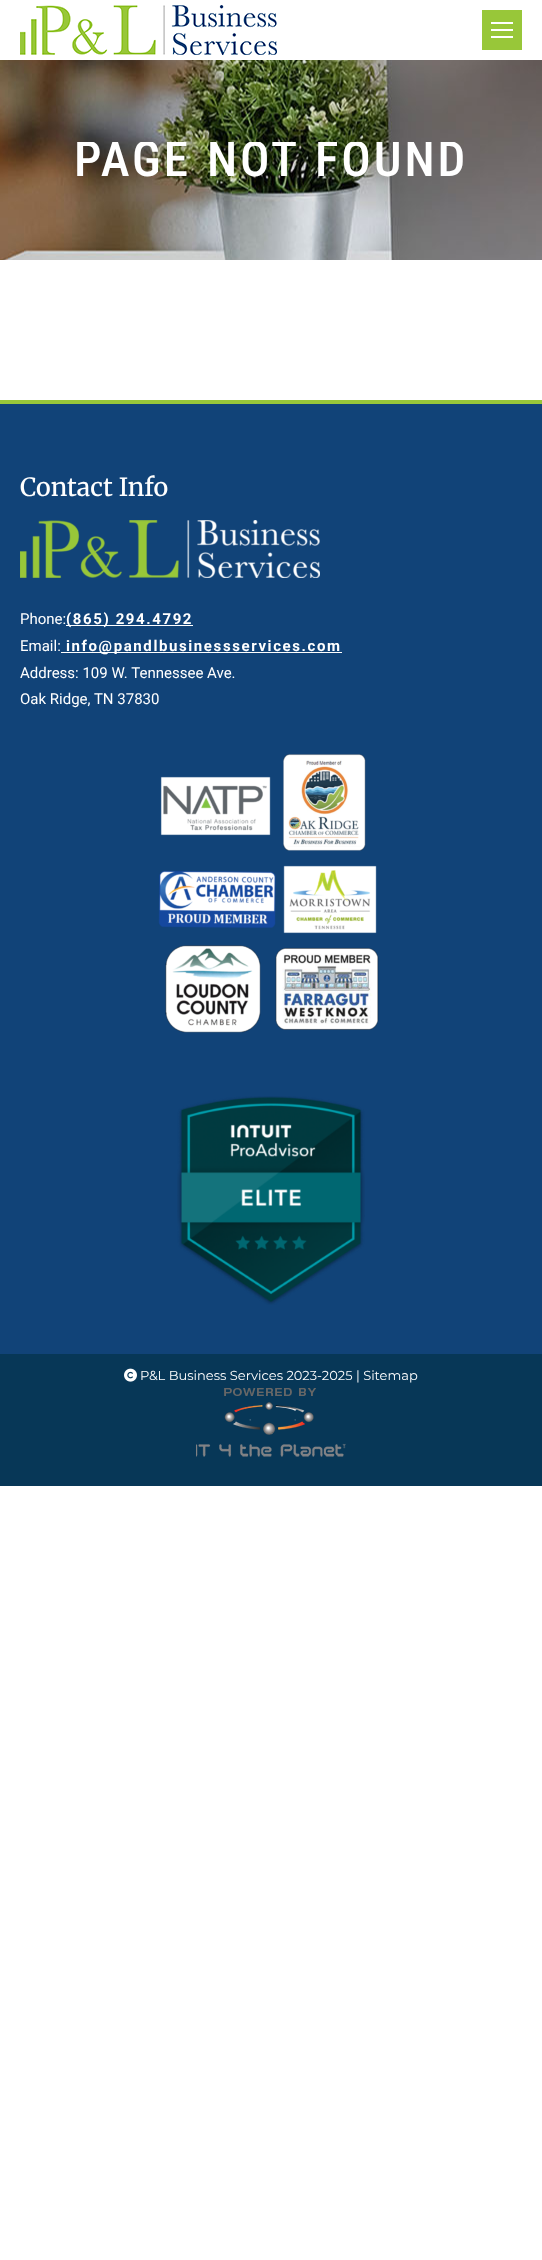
<svg xmlns="http://www.w3.org/2000/svg" width="542" height="2260" viewBox="0 0 542 2260">
  <style>
    .t1 { font: 500 49px Roboto Condensed; letter-spacing: 2.9px; fill: #fff; }
    .t2 { font: 500 25px Merriweather; fill: #fff; }
    .t3 { font: 15px Roboto; fill: #fff; }
    .t4 { font: bold 15px Roboto; letter-spacing: 1.6px; fill: #fff; }
    .t5 { font: 13px Montserrat; fill: #fff; }
  </style>
  <defs>
    <clipPath id="clip1"><rect x="74" y="142" width="394" height="36"/></clipPath>
  </defs>
  <rect width="100%" height="100%" fill="#fff"/>
  <image x="20" y="5" width="257" height="50" href="images/1.png"/>
  <rect x="482" y="10" width="40" height="40" fill="#98c739"/>
  <rect x="491" y="22" width="22" height="2" fill="#fff"/>
  <rect x="491" y="29" width="22" height="2" fill="#fff"/>
  <rect x="491" y="36" width="22" height="2" fill="#fff"/>
  <image x="0" y="60" width="542" height="200" href="images/2.png"/>
  <g clip-path="url(#clip1)">
    <text x="74" y="176" word-spacing="2" class="t1">PAGE NOT FOUND</text>
  </g>
  <rect x="0" y="404" width="542" height="950" fill="#114378"/>
  <rect x="0" y="400" width="542" height="4" fill="#98c739"/>
  <text x="20" y="496" class="t2">Contact Info</text>
  <image x="20" y="520" width="300" height="58" href="images/3.png"/>
  <text x="20" y="624" class="t3">Phone:</text>
  <rect x="66" y="625" width="127" height="1" fill="#fff"/>
  <text x="66" y="624" class="t4">(865) 294.4792</text>
  <text x="20" y="651" class="t3">Email:</text>
  <rect x="61" y="652" width="281" height="1" fill="#fff"/>
  <text x="66" y="651" class="t4">info@pandlbusinessservices.com</text>
  <text x="20" y="678" class="t3">Address: 109 W. Tennessee Ave.</text>
  <text x="20" y="704" class="t3">Oak Ridge, TN 37830</text>
  <image x="158" y="754" width="221" height="279" href="images/4.png"/>
  <image x="177" y="1096" width="188" height="209" href="images/5.png"/>
  <rect x="0" y="1354" width="542" height="132" fill="#073757"/>
  <image x="124" y="1368" width="13" height="14" href="images/6.png"/>
  <text x="140" y="1380" class="t5">P&amp;L Business Services 2023-2025 | Sitemap</text>
  <image x="196" y="1388" width="150" height="69" href="images/7.png"/>
</svg>
